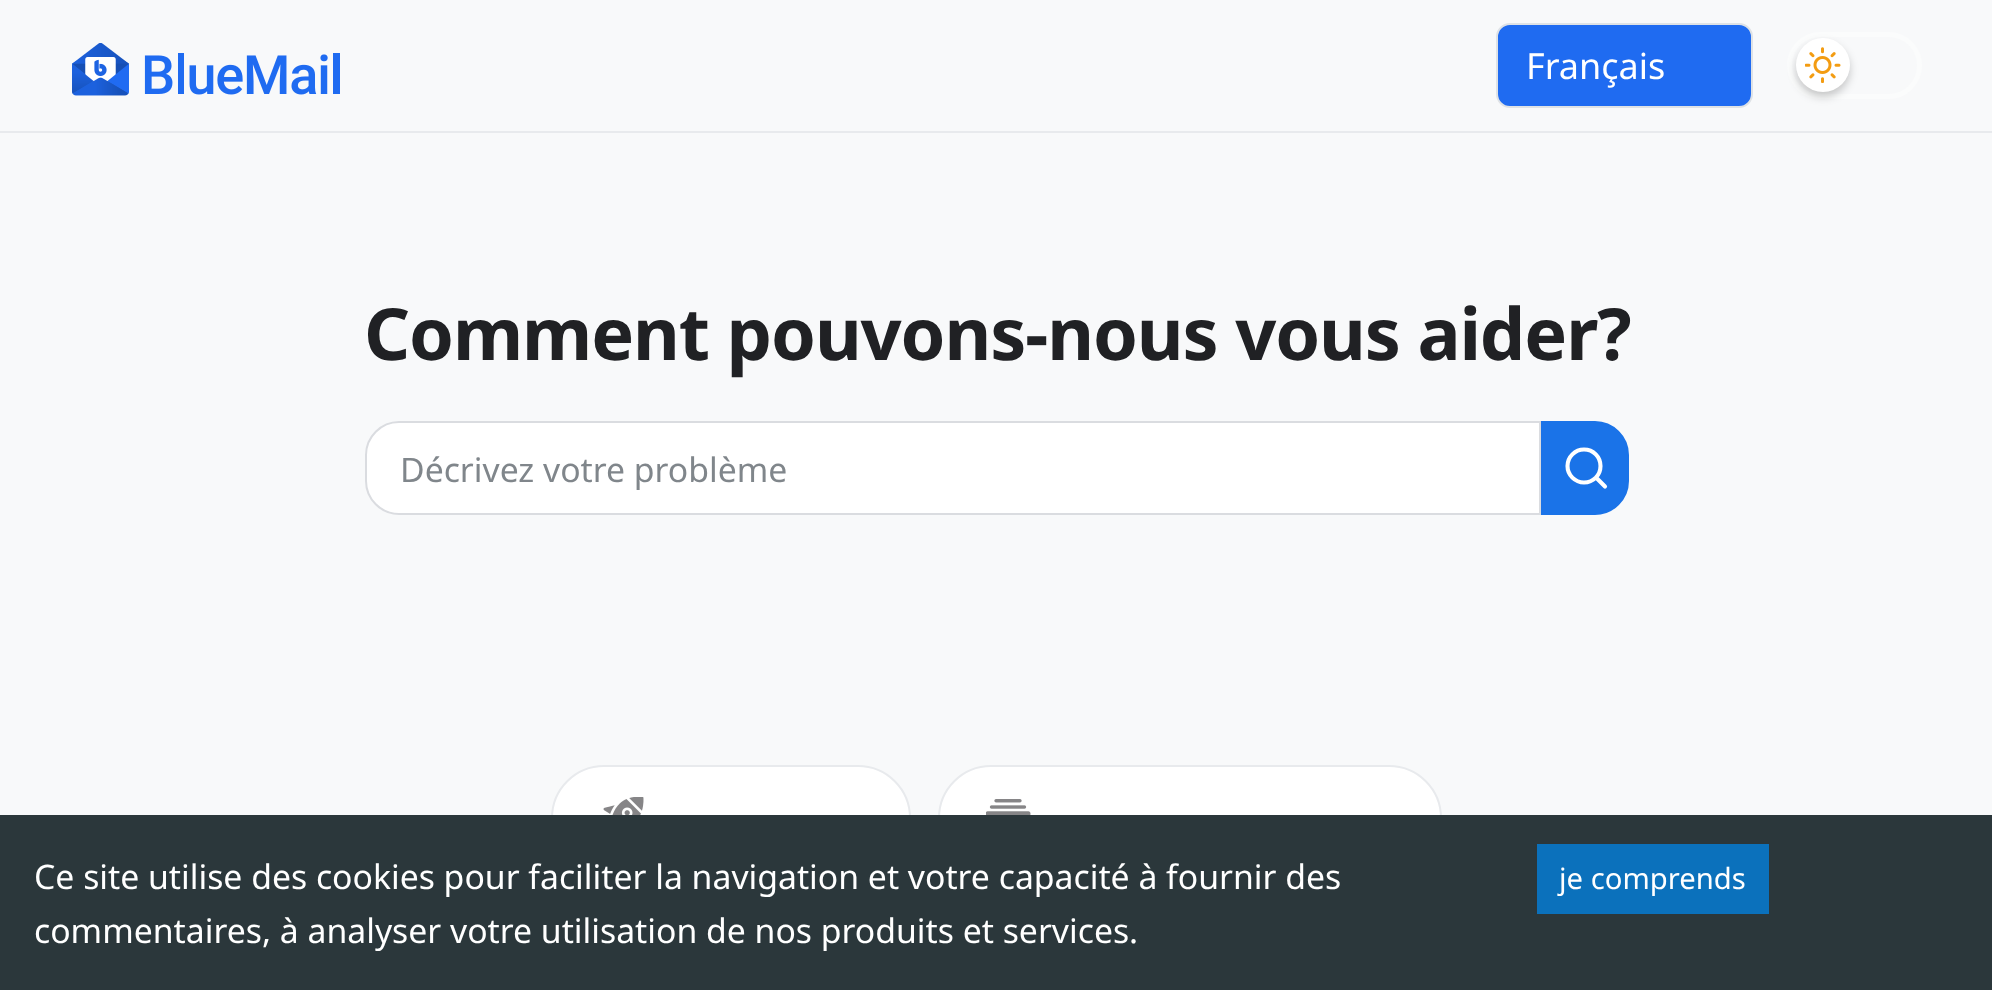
<svg xmlns="http://www.w3.org/2000/svg" width="1992" height="990" viewBox="0 0 1992 990">
  <style>
    .t1 { font: 36px Noto Sans; fill: #fff; }
    .t2 { font: bold 72px Noto Sans; letter-spacing: -1.1px; fill: #202124; }
    .t3 { font: 33.75px Noto Sans; fill: #80868b; }
    .t4 { font: 33.75px Noto Sans; fill: #fff; }
    .t5 { font: 29.25px Noto Sans; fill: #fff; }
  </style>
  <rect width="100%" height="100%" fill="#f8f9fa"/>
  <rect x="0" y="131" width="1992" height="2" fill="#e8eaed"/>
  <image x="72" y="43" width="268" height="53" href="images/1.png"/>
  <rect x="1497" y="24" width="255" height="83" rx="13" fill="#1f6bf1" stroke="#dee2e6" stroke-width="2"/>
  <text x="1526" y="79" class="t1">Français</text>
  <rect x="1789.5" y="34.5" width="130" height="62" rx="31" fill="none" stroke="#fbfcfc" stroke-width="5"/>
  <rect x="1796" y="43" width="54" height="54" rx="27" fill="#00000033" filter="blur(4.5px)"/>
  <circle cx="1823" cy="65" r="27" fill="#fff"/>
  <image x="1805" y="47" width="36" height="36" href="images/2.png"/>
  <text x="364" y="360" class="t2">Comment pouvons-nous vous aider?</text>
  <path d="M399 422H1540V514H399C381 514 366 499 366 481V455C366 437 381 422 399 422Z" fill="#fff" stroke="#dadce0" stroke-width="2"/>
  <text x="400" y="482" class="t3">Décrivez votre problème</text>
  <path d="M1542 422H1595C1613 422 1628 437 1628 455V481C1628 499 1613 514 1595 514H1542Z" fill="#1a73e8" stroke="#1a73e8" stroke-width="2"/>
  <path d="M1584 482.5C1593.5 482.5 1600.5 475 1600.5 466C1600.5 457 1593.5 449.5 1584 449.5C1575 449.5 1567.5 457 1567.5 466C1567.5 475 1575 482.5 1584 482.5ZM1605 486.5L1596 477.5" fill="none" stroke="#fff" stroke-width="4.1" stroke-linecap="round" stroke-linejoin="round"/>
  <rect x="552" y="766" width="358" height="104" rx="52" fill="#fff" stroke="#e8eaed" stroke-width="2"/>
  <rect x="939" y="766" width="502" height="104" rx="52" fill="#fff" stroke="#e8eaed" stroke-width="2"/>
  <rect x="0" y="815" width="1992" height="175" fill="#2b373b"/>
  <text x="34" y="889" class="t4">Ce site utilise des cookies pour faciliter la navigation et votre capacité à fournir des</text>
  <text x="34" y="943" class="t4">commentaires, à analyser votre utilisation de nos produits et services.</text>
  <rect x="1537" y="844" width="232" height="70" fill="#0b71bc"/>
  <text x="1559" y="889" class="t5">je comprends</text>
  <image x="603" y="797" width="41" height="18" href="images/3.png"/>
  <image x="986" y="799" width="45" height="16" href="images/4.png"/>
</svg>
